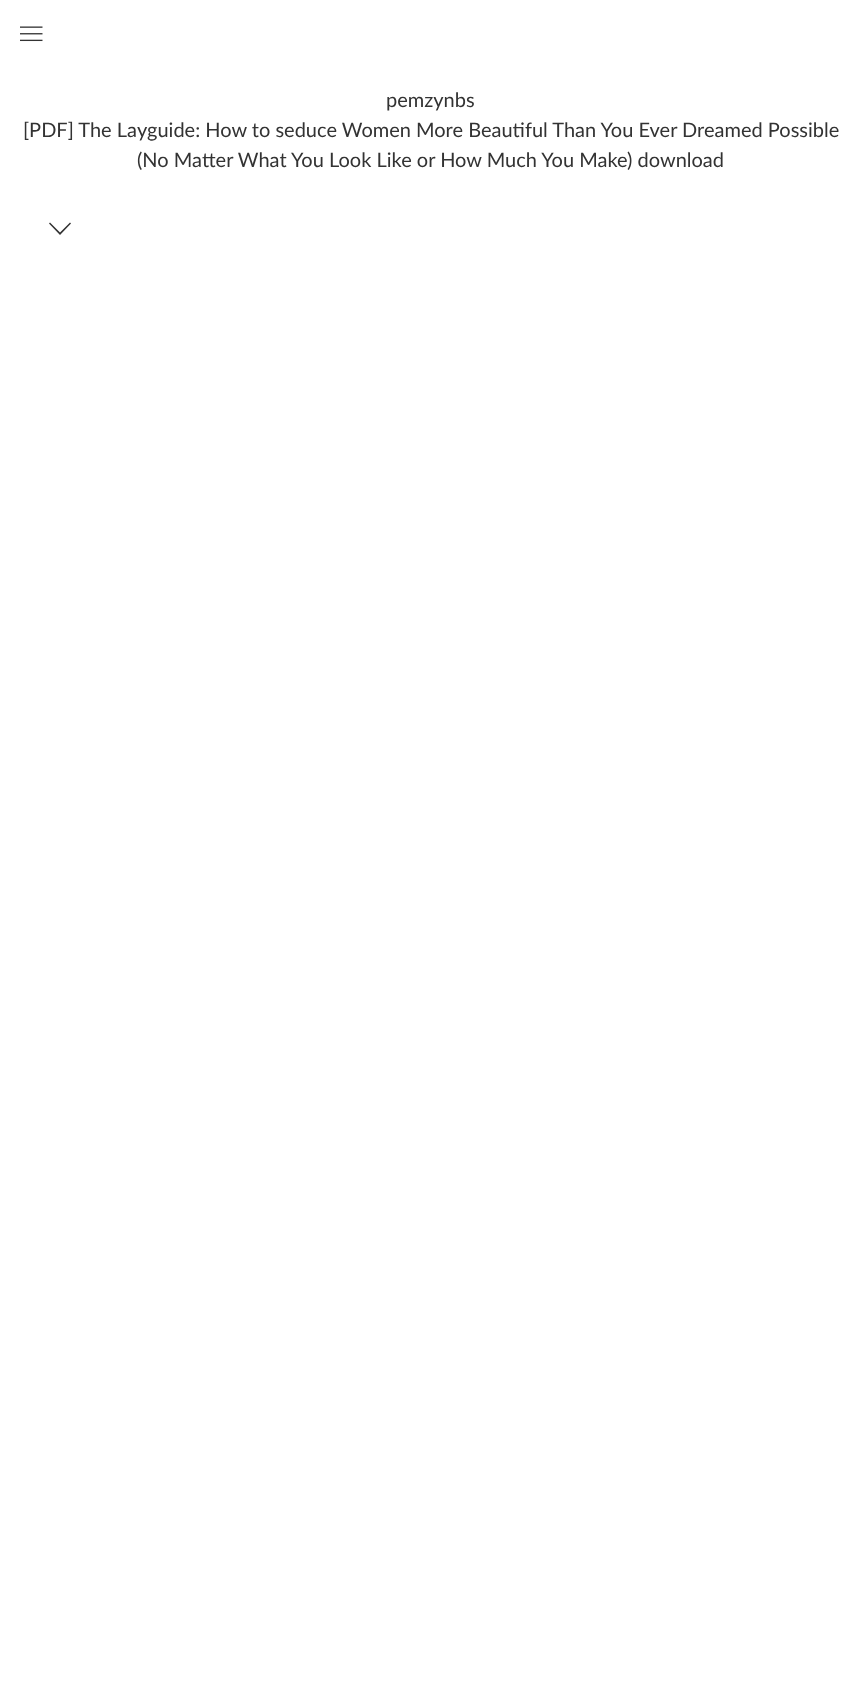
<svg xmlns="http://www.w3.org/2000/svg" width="861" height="1702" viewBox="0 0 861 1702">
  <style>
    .t1 { font: 20px Lato; fill: #333; }
  </style>
  <rect width="100%" height="100%" fill="#fff"/>
  <image x="20" y="26" width="23" height="16" href="images/1.png"/>
  <text x="386" y="107" class="t1">pemzynbs</text>
  <text x="23" y="137" class="t1">[PDF] The Layguide: How to seduce Women More Beautiful Than You Ever Dreamed Possible</text>
  <text x="137" y="167" class="t1">(No Matter What You Look Like or How Much You Make) download</text>
  <path d="M49 223.5L50 222.5L60 232.5L70 222.5L71 223.5L60 235Z" fill="#333"/>
</svg>
